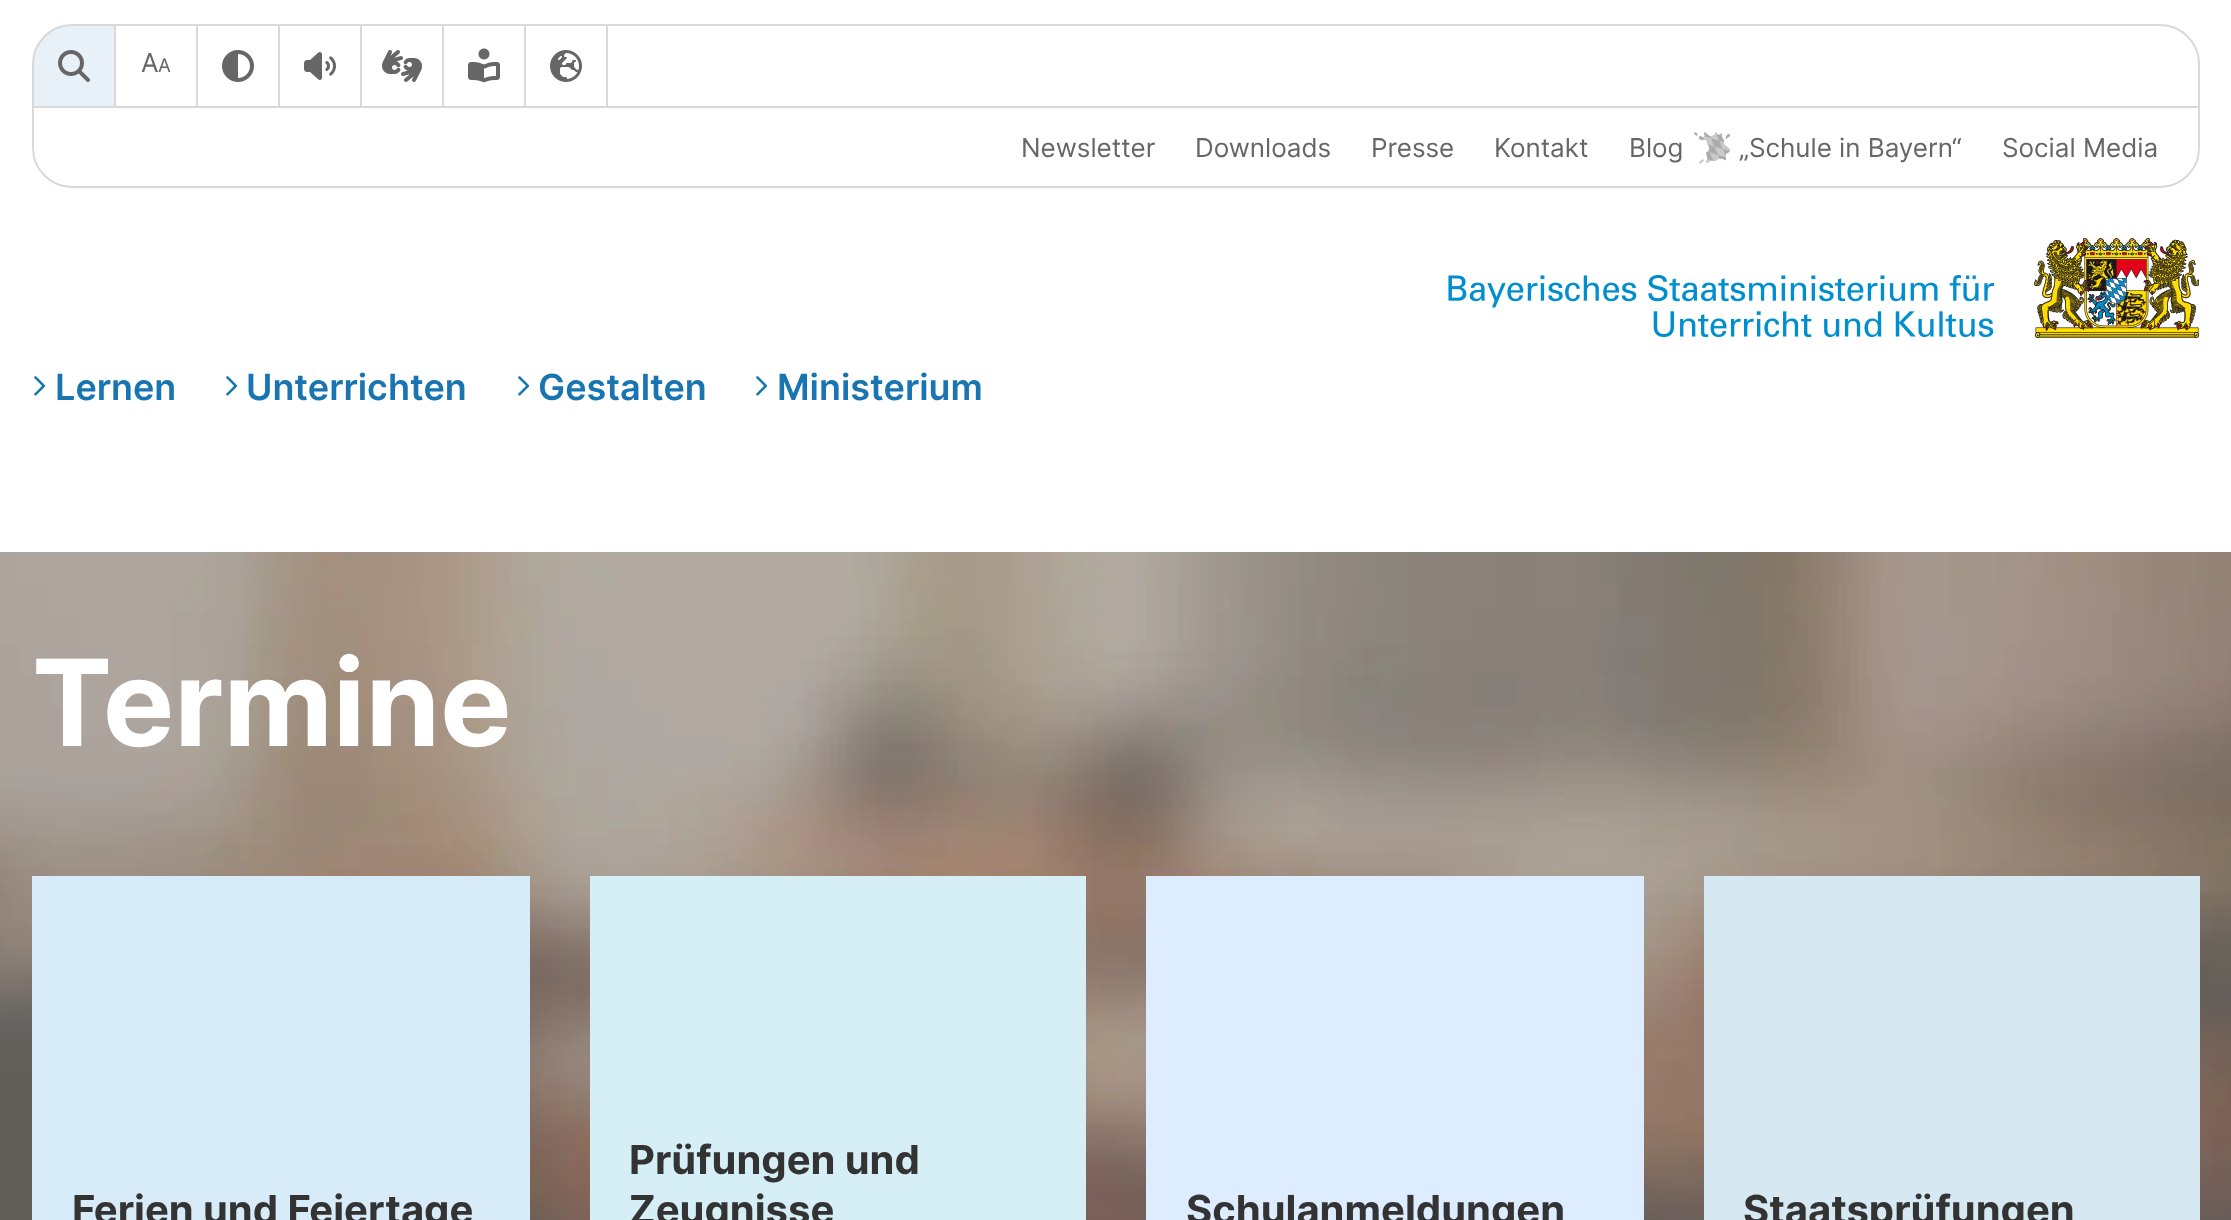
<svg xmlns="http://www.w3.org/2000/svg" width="2231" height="1220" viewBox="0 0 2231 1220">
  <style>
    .t1 { font: 26px Inter; fill: #666; }
    .t2 { font: 19px Inter; fill: #666; }
    .t3 { font: 600 36px Inter; fill: #1875b2; }
    .t4 { font: bold 120px Inter; fill: #fff; }
    .t5 { font: bold 40px Inter; fill: #333; }
  </style>
  <rect width="100%" height="100%" fill="#fff"/>
  <rect x="33" y="25" width="2166" height="162" rx="39" fill="none" stroke="#d9d9d9" stroke-width="2"/>
  <rect x="114" y="26" width="2" height="80" fill="#d9d9d9"/>
  <path d="M72 26H114V106H34V64C34 43 51 26 72 26Z" fill="#1875b21a"/>
  <image x="58" y="50" width="32" height="32" href="images/1.png"/>
  <rect x="196" y="26" width="2" height="80" fill="#d9d9d9"/>
  <text x="141" y="72" class="t1">A</text>
  <text x="158" y="72" class="t2">A</text>
  <rect x="278" y="26" width="2" height="80" fill="#d9d9d9"/>
  <image x="222" y="50" width="32" height="32" href="images/2.png"/>
  <rect x="360" y="26" width="2" height="80" fill="#d9d9d9"/>
  <image x="304" y="52" width="32" height="28" href="images/3.png"/>
  <rect x="442" y="26" width="2" height="80" fill="#d9d9d9"/>
  <image x="382" y="50" width="40" height="32" href="images/4.png"/>
  <rect x="524" y="26" width="2" height="80" fill="#d9d9d9"/>
  <image x="468" y="48" width="32" height="35" href="images/5.png"/>
  <rect x="606" y="26" width="2" height="80" fill="#d9d9d9"/>
  <image x="550" y="50" width="32" height="32" href="images/6.png"/>
  <rect x="34" y="106" width="2164" height="2" fill="#d9d9d9"/>
  <text x="1021" y="157" class="t1">Newsletter</text>
  <text x="1195" y="157" class="t1">Downloads</text>
  <text x="1371" y="157" class="t1">Presse</text>
  <text x="1494" y="157" class="t1">Kontakt</text>
  <text x="1629" y="157" class="t1">Blog</text>
  <image x="1694" y="132" width="36" height="32" href="images/7.png"/>
  <text x="1739" y="157" class="t1">„Schule in Bayern“</text>
  <text x="2002" y="157" class="t1">Social Media</text>
  <image x="1448" y="274" width="546" height="63" href="images/8.png"/>
  <image x="2034" y="238" width="165" height="100" href="images/9.png"/>
  <image x="34" y="376" width="12" height="20" href="images/10.png"/>
  <text x="55" y="400" class="t3">Lernen</text>
  <image x="226" y="376" width="12" height="20" href="images/10.png"/>
  <text x="246" y="400" class="t3">Unterrichten</text>
  <image x="518" y="376" width="12" height="20" href="images/10.png"/>
  <text x="538" y="400" class="t3">Gestalten</text>
  <image x="756" y="376" width="12" height="20" href="images/10.png"/>
  <text x="777" y="400" class="t3">Ministerium</text>
  <image x="0" y="552" width="2231" height="668" href="images/11.png"/>
  <text x="32" y="746" class="t4">Termine</text>
  <rect x="32" y="876" width="498" height="344" fill="#d7ecf8"/>
  <text x="72" y="1224" class="t5">Ferien und Feiertage</text>
  <rect x="590" y="876" width="496" height="344" fill="#d6eef5"/>
  <text x="629" y="1174" class="t5">Prüfungen und</text>
  <text x="629" y="1224" class="t5">Zeugnisse</text>
  <rect x="1146" y="876" width="498" height="344" fill="#ddecff"/>
  <text x="1186" y="1224" class="t5">Schulanmeldungen</text>
  <rect x="1704" y="876" width="496" height="344" fill="#d6e8f2"/>
  <text x="1743" y="1224" class="t5">Staatsprüfungen</text>
</svg>
